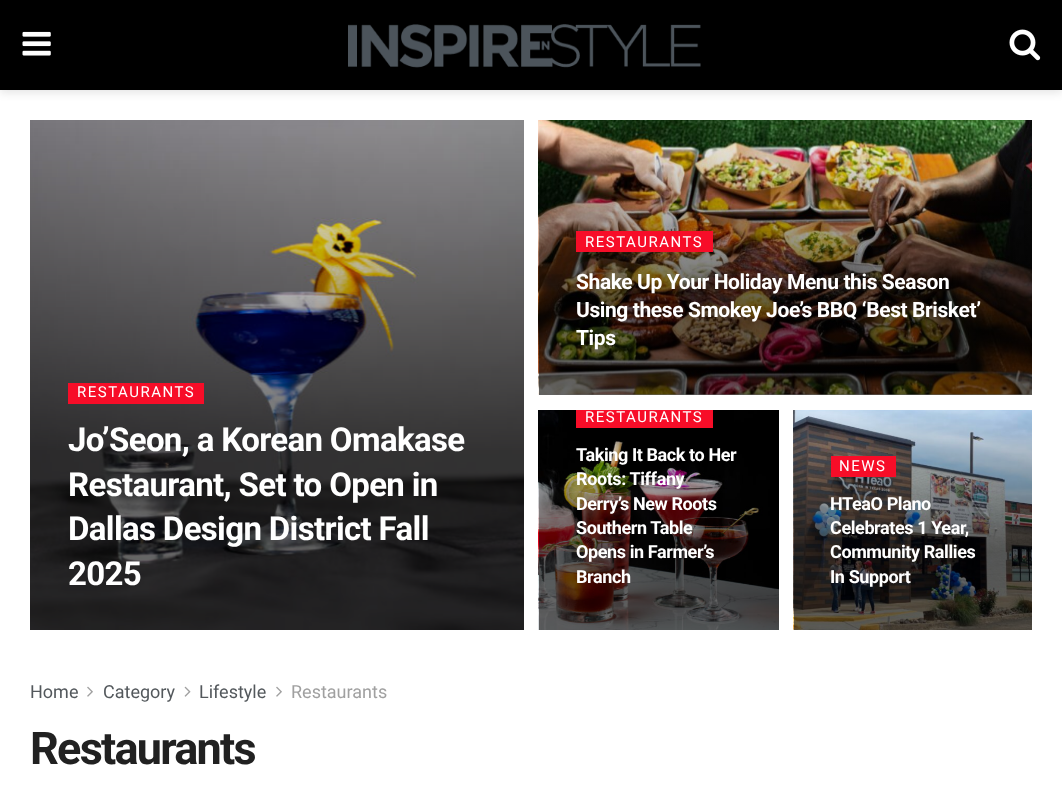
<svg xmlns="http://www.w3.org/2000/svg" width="1062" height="806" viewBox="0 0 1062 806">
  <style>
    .t1 { font: 15px Roboto; letter-spacing: 1.5px; fill: #fff; }
    .t2 { font: bold 33px Roboto; letter-spacing: -0.65px; fill: #fff; }
    .t3 { font: bold 21px Roboto; letter-spacing: -0.4px; fill: #fff; }
    .t4 { font: bold 18px Roboto; letter-spacing: -0.4px; fill: #fff; }
    .t5 { font: 18px Roboto; fill: #53585c; }
    .t6 { font: 18px Roboto; fill: #a0a0a0; }
    .t7 { font: bold 45px Roboto; letter-spacing: -1.75px; fill: #212121; }
  </style>
  <defs>
    <linearGradient id="g1" gradientUnits="userSpaceOnUse" x1="763" y1="120" x2="763" y2="395"><stop offset="0" stop-color="#000" stop-opacity="0"/><stop offset="0.65" stop-color="#000" stop-opacity="0.6"/><stop offset="1" stop-color="#000" stop-opacity="0.6"/></linearGradient>
  </defs>
  <rect width="100%" height="100%" fill="#fff"/>
  <rect x="0" y="3" width="1062" height="90" fill="#0000001a" filter="blur(4.5px)"/>
  <rect x="0" y="0" width="1062" height="90" fill="#000"/>
  <image x="22" y="31" width="29" height="25" href="images/1.png"/>
  <image x="348" y="24" width="353" height="44" href="images/2.png"/>
  <image x="1009" y="29" width="32" height="32" href="images/3.png"/>
  <image x="30" y="120" width="494" height="510" href="images/4.png"/>
  <rect x="68" y="383" width="136" height="21" fill="#f70d28"/>
  <text x="77" y="397" class="t1">RESTAURANTS</text>
  <text x="68" y="451" class="t2">Jo’Seon, a Korean Omakase</text>
  <text x="68" y="496" class="t2">Restaurant, Set to Open in</text>
  <text x="68" y="540" class="t2">Dallas Design District Fall</text>
  <text x="68" y="585" class="t2">2025</text>
  <rect x="539" y="394" width="493" height="1" fill="#f7f7f7"/>
  <image x="538" y="120" width="494" height="275" href="images/5.png"/>
  <rect x="539" y="126" width="493" height="269" fill="url(#g1)"/>
  <rect x="576" y="231" width="137" height="21" fill="#f70d28"/>
  <text x="585" y="247" class="t1">RESTAURANTS</text>
  <text x="576" y="289" class="t3">Shake Up Your Holiday Menu this Season</text>
  <text x="576" y="317" class="t3">Using these Smokey Joe’s BBQ ‘Best Brisket’</text>
  <text x="576" y="345" class="t3">Tips</text>
  <image x="538" y="410" width="241" height="220" href="images/6.png"/>
  <rect x="576" y="410" width="137" height="18" fill="#f70d28"/>
  <text x="585" y="422" class="t1">RESTAURANTS</text>
  <text x="576" y="461" class="t4">Taking It Back to Her</text>
  <text x="576" y="485" class="t4">Roots: Tiffany</text>
  <text x="576" y="510" class="t4">Derry’s New Roots</text>
  <text x="576" y="534" class="t4">Southern Table</text>
  <text x="576" y="558" class="t4">Opens in Farmer’s</text>
  <text x="576" y="583" class="t4">Branch</text>
  <image x="793" y="410" width="239" height="220" href="images/7.png"/>
  <rect x="831" y="456" width="65" height="21" fill="#f70d28"/>
  <text x="839" y="471" class="t1">NEWS</text>
  <text x="830" y="510" class="t4">HTeaO Plano</text>
  <text x="830" y="534" class="t4">Celebrates 1 Year,</text>
  <text x="830" y="558" class="t4">Community Rallies</text>
  <text x="830" y="583" class="t4">In Support</text>
  <text x="30" y="698" class="t5">Home</text>
  <image x="87" y="686" width="6" height="11" href="images/8.png"/>
  <text x="103" y="698" class="t5">Category</text>
  <image x="184" y="686" width="7" height="11" href="images/9.png"/>
  <text x="199" y="698" class="t5">Lifestyle</text>
  <image x="276" y="686" width="6" height="11" href="images/8.png"/>
  <text x="291" y="698" class="t6">Restaurants</text>
  <text x="30" y="764" class="t7">Restaurants</text>
</svg>
